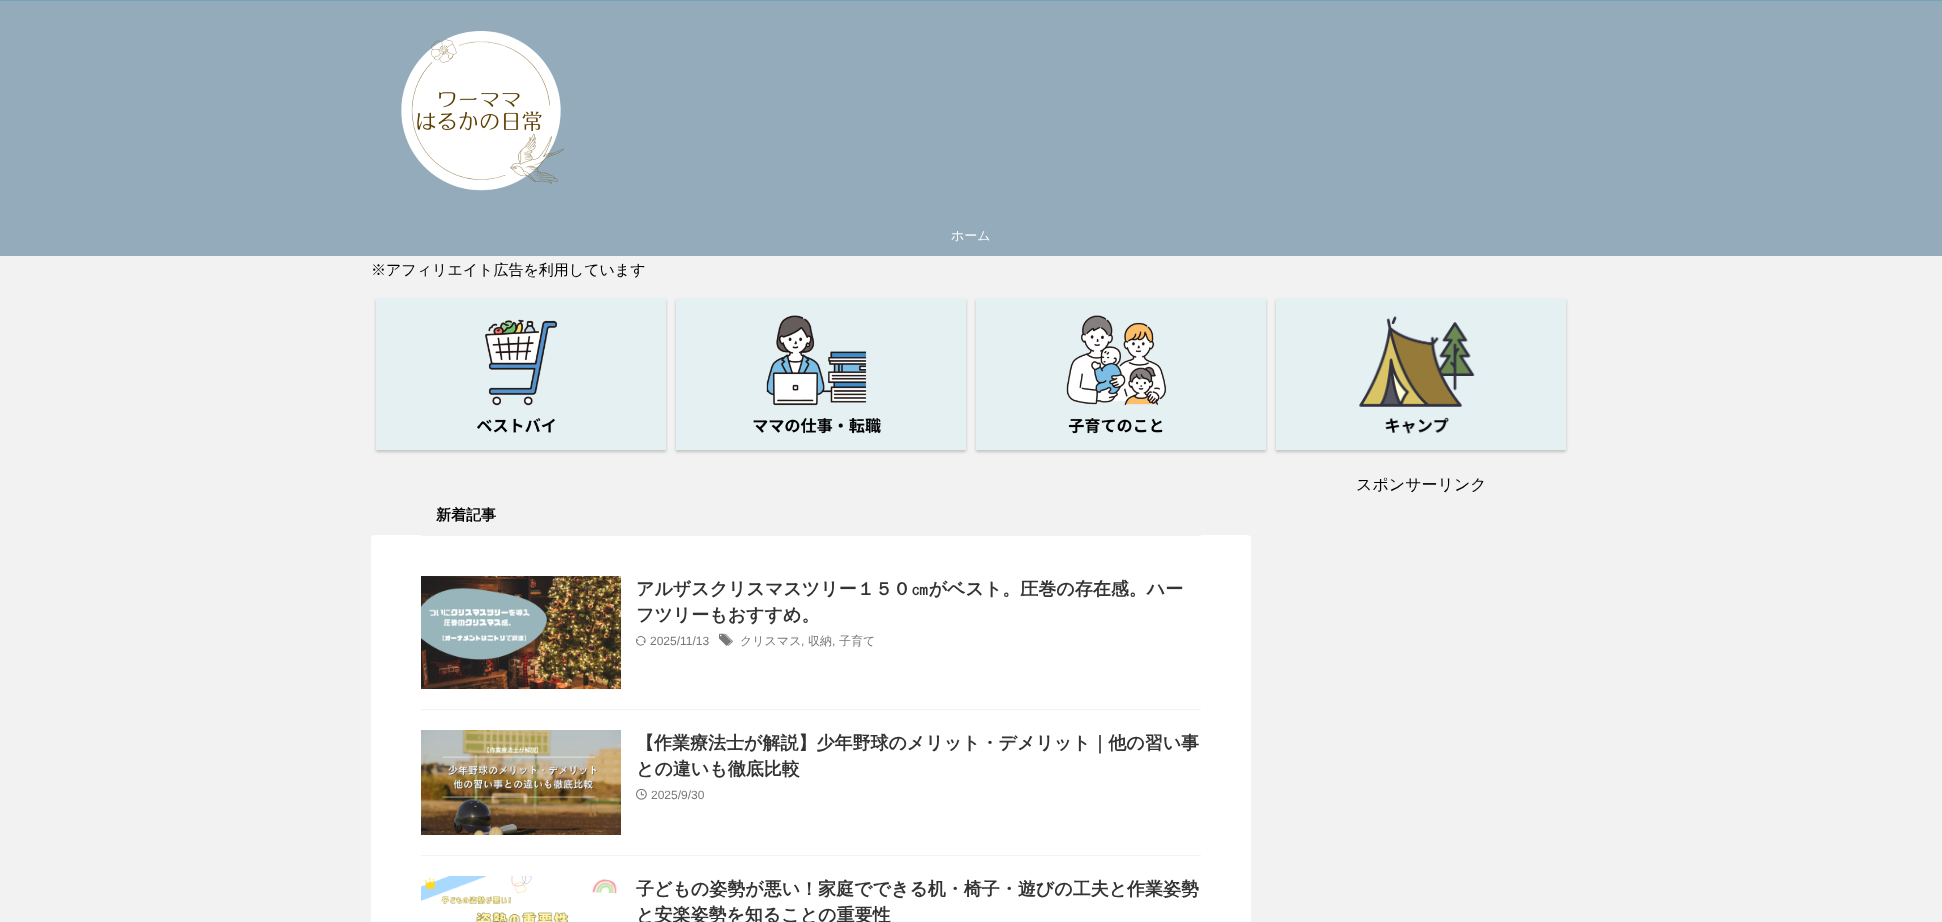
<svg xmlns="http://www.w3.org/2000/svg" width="1942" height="922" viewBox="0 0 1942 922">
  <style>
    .t1 { font: 500 13px WenQuanYi Zen Hei; fill: #fcfcfc; }
    .t2 { font: 500 15px WenQuanYi Zen Hei; fill: #000; }
    .t3 { font: 500 16px WenQuanYi Zen Hei; fill: #000; }
    .t4 { font: bold 15px WenQuanYi Zen Hei; fill: #000; }
    .t5 { font: bold 18px WenQuanYi Zen Hei; fill: #333; }
    .t6 { font: 12px Liberation Sans; fill: #777; }
    .t7 { font: 500 12px WenQuanYi Zen Hei; fill: #777; }
  </style>
  <rect width="100%" height="100%" fill="#f2f2f2"/>
  <rect x="0" y="0" width="1942" height="1" fill="#6ea5b7"/>
  <rect x="0" y="1" width="1942" height="255" fill="#93abba"/>
  <image x="401" y="31" width="163" height="160" href="images/1.png"/>
  <text x="951" y="240" class="t1">ホーム</text>
  <text x="371" y="275" class="t2">※アフィリエイト広告を利用しています</text>
  <rect x="376" y="300" width="290" height="152" fill="#00000033" filter="blur(1.5px)"/>
  <image x="376" y="298" width="290" height="152" href="images/2.png"/>
  <rect x="676" y="300" width="290" height="152" fill="#00000033" filter="blur(1.5px)"/>
  <image x="676" y="298" width="290" height="152" href="images/3.png"/>
  <rect x="976" y="300" width="290" height="152" fill="#00000033" filter="blur(1.5px)"/>
  <image x="976" y="298" width="290" height="152" href="images/4.png"/>
  <rect x="1276" y="300" width="290" height="152" fill="#00000033" filter="blur(1.5px)"/>
  <image x="1276" y="298" width="290" height="152" href="images/5.png"/>
  <text x="1356" y="490" class="t3">スポンサーリンク</text>
  <rect x="371" y="535" width="880" height="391" rx="4" fill="#fff"/>
  <rect x="421" y="535" width="780" height="1" fill="#f3f3f3"/>
  <text x="436" y="520" class="t4">新着記事</text>
  <rect x="421" y="709" width="780" height="1" fill="#f3f3f3"/>
  <image x="421" y="576" width="200" height="113" href="images/6.png"/>
  <text x="636" y="595" class="t5">アルザスクリスマスツリー１５０㎝がベスト。圧巻の存在感。ハー</text>
  <text x="636" y="621" class="t5">フツリーもおすすめ。</text>
  <image x="636" y="636" width="10" height="10" href="images/7.png"/>
  <text x="650" y="645" class="t6">2025/11/13</text>
  <image x="719" y="633" width="14" height="13" href="images/8.png"/>
  <text x="740" y="645" class="t7">クリスマス</text>
  <text x="801" y="645" class="t6">,</text>
  <text x="808" y="645" class="t7">収納</text>
  <text x="832" y="645" class="t6">,</text>
  <text x="839" y="645" class="t7">子育て</text>
  <rect x="421" y="855" width="780" height="1" fill="#f3f3f3"/>
  <image x="421" y="730" width="200" height="105" href="images/9.png"/>
  <text x="636" y="749" class="t5">【作業療法士が解説】少年野球のメリット・デメリット｜他の習い事</text>
  <text x="636" y="775" class="t5">との違いも徹底比較</text>
  <image x="636" y="788" width="11" height="12" href="images/10.png"/>
  <text x="651" y="799" class="t6">2025/9/30</text>
  <image x="421" y="876" width="196" height="46" href="images/11.png"/>
  <text x="636" y="895" class="t5">子どもの姿勢が悪い！家庭でできる机・椅子・遊びの工夫と作業姿勢</text>
  <text x="636" y="921" class="t5">と安楽姿勢を知ることの重要性</text>
</svg>
